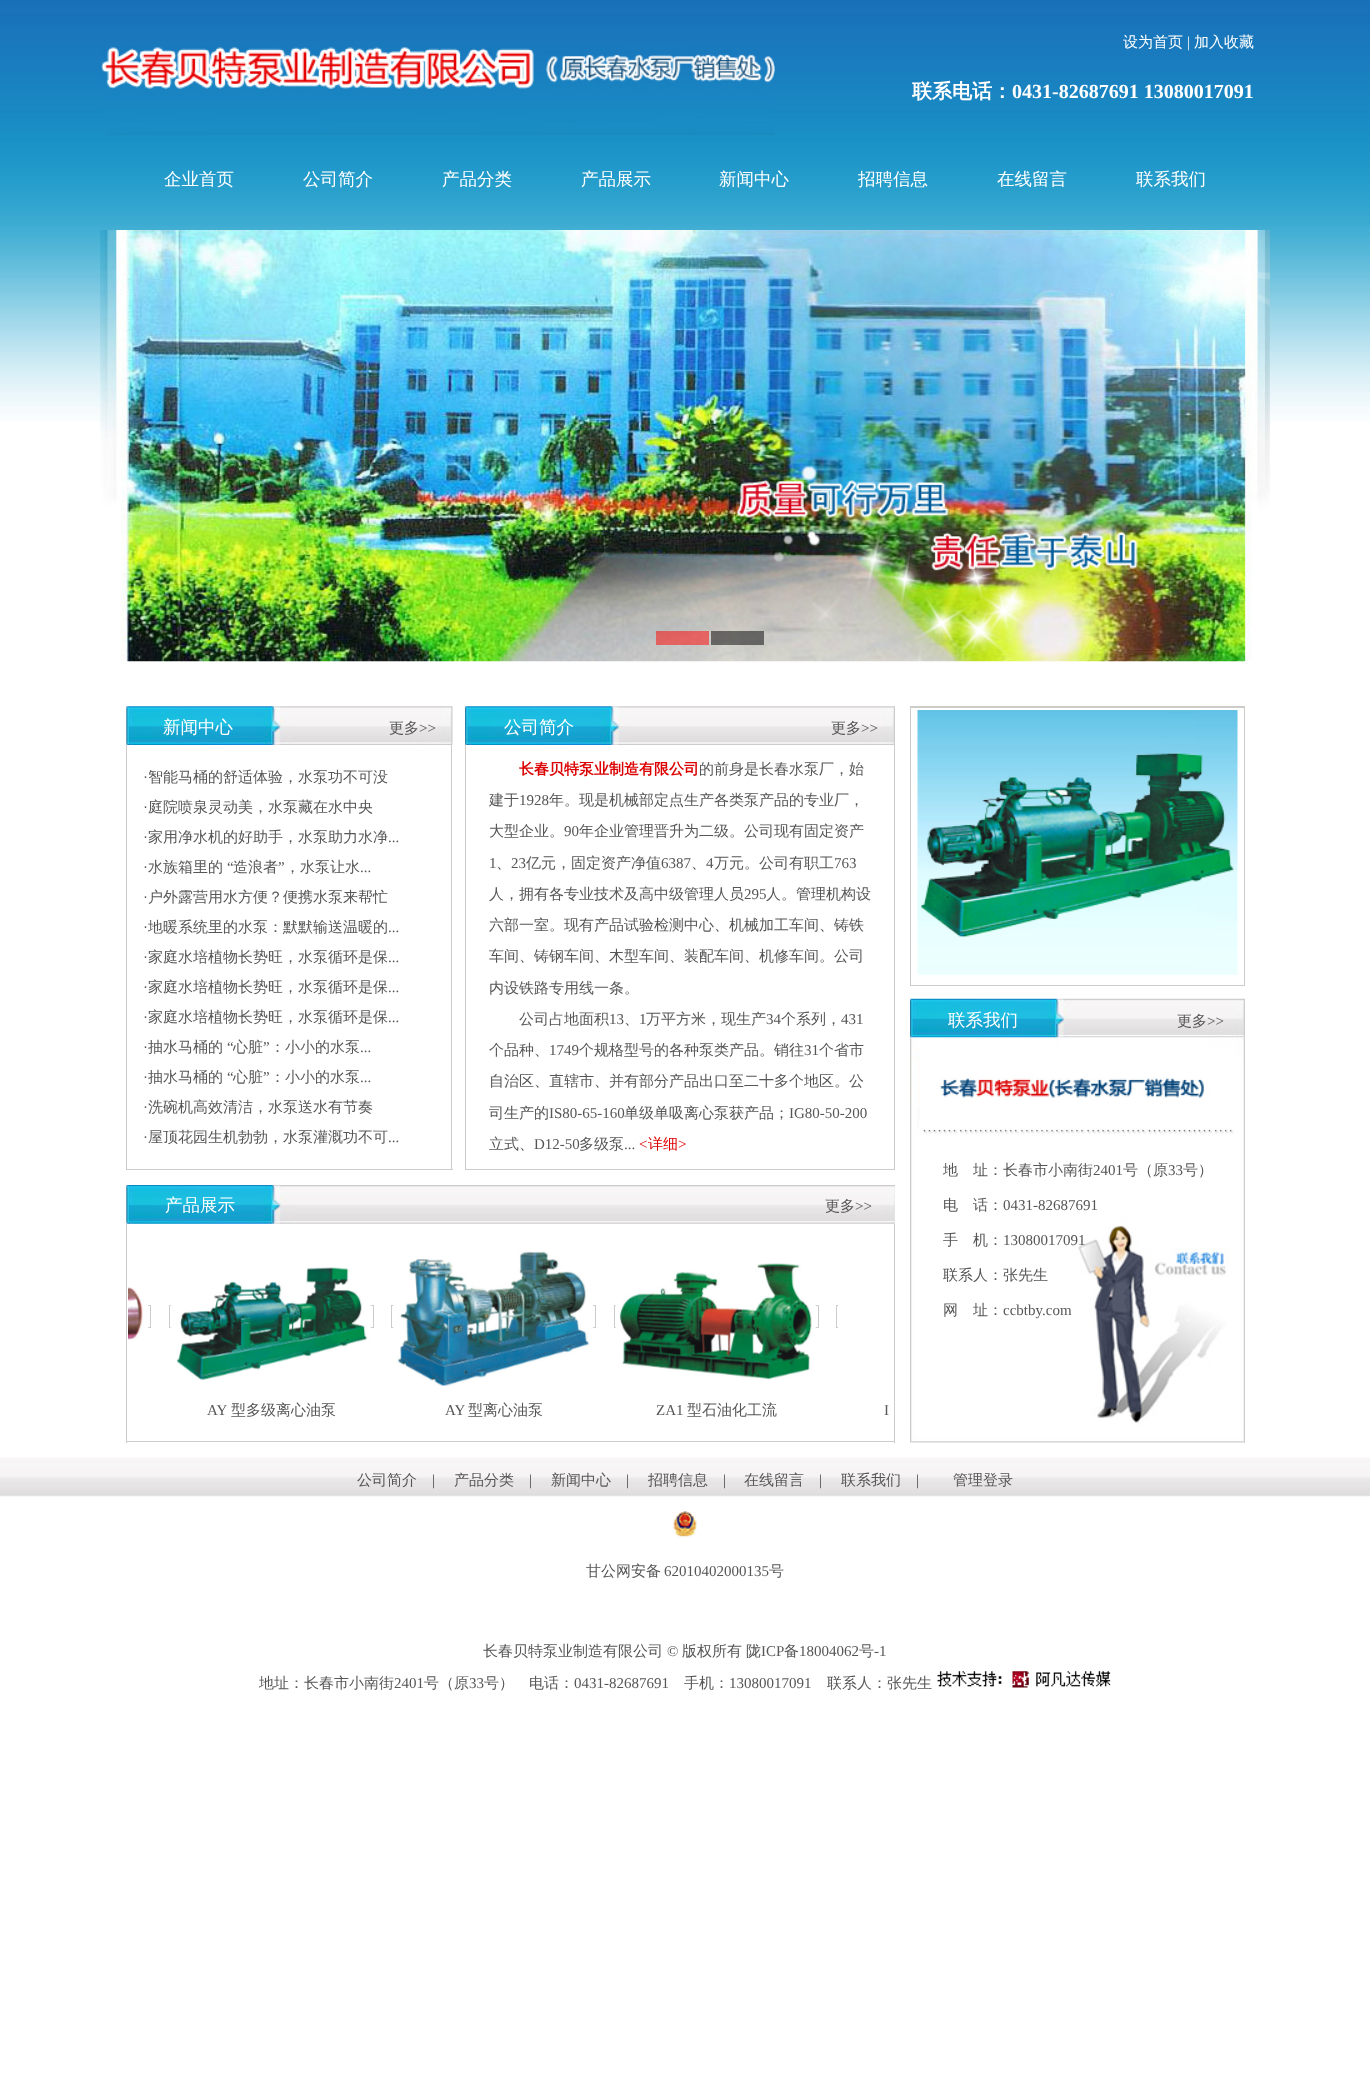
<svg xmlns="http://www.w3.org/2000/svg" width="1370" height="2074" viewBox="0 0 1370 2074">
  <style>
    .t1 { font: 500 15px WenQuanYi Zen Hei; fill: #fff; }
    .t2 { font: 15px Liberation Serif; fill: #fff; }
    .t3 { font: bold 20px WenQuanYi Zen Hei; fill: #fff; }
    .t4 { font: bold 20px Liberation Serif; fill: #fff; }
    .t5 { font: 500 17.5px WenQuanYi Zen Hei; fill: #fff; }
    .t6 { font: 500 15px WenQuanYi Zen Hei; fill: #565656; }
    .t7 { font: 15px Liberation Serif; fill: #565656; }
    .t8 { font: bold 15px WenQuanYi Zen Hei; fill: #dc0000; }
    .t9 { font: 15px Liberation Serif; fill: #dc0000; }
    .t10 { font: 500 15px WenQuanYi Zen Hei; fill: #dc0000; }
    .t11 { font: 15px Liberation Serif; fill: #454545; }
  </style>
  <defs>
    <clipPath id="clip1"><rect x="129" y="1234" width="762" height="197"/></clipPath>
  </defs>
  <rect width="100%" height="100%" fill="#fff"/>
  <image x="0" y="0" width="1370" height="422" href="images/1.png"/>
  <image x="101" y="47" width="674" height="88" href="images/2.png"/>
  <text x="1123" y="47" class="t1">设为首页</text>
  <text x="1187" y="47" class="t2">|</text>
  <text x="1194" y="47" class="t1">加入收藏</text>
  <text x="912" y="98" class="t3">联系电话：</text>
  <text x="1012" y="98" class="t4">0431-82687691 13080017091</text>
  <text x="164" y="185" class="t5">企业首页</text>
  <text x="303" y="185" class="t5">公司简介</text>
  <text x="442" y="185" class="t5">产品分类</text>
  <text x="581" y="185" class="t5">产品展示</text>
  <text x="719" y="185" class="t5">新闻中心</text>
  <text x="858" y="185" class="t5">招聘信息</text>
  <text x="997" y="185" class="t5">在线留言</text>
  <text x="1136" y="185" class="t5">联系我们</text>
  <image x="100" y="230" width="1170" height="432" href="images/3.png"/>
  <rect x="656" y="631" width="53" height="14" fill="#ff000080"/>
  <rect x="711" y="631" width="53" height="14" fill="#00000080"/>
  <image x="126" y="706" width="327" height="39" href="images/4.png"/>
  <text x="163" y="733" class="t5">新闻中心</text>
  <text x="389" y="733" class="t6">更多</text>
  <text x="419" y="733" class="t7">&gt;&gt;</text>
  <rect x="451" y="745" width="1" height="425" fill="#cdccc8"/>
  <rect x="126" y="1169" width="327" height="1" fill="#cdccc8"/>
  <rect x="126" y="745" width="1" height="425" fill="#cdccc8"/>
  <text x="143" y="782" class="t7">·</text>
  <text x="148" y="782" class="t6">智能马桶的舒适体验，水泵功不可没</text>
  <text x="143" y="812" class="t7">·</text>
  <text x="148" y="812" class="t6">庭院喷泉灵动美，水泵藏在水中央</text>
  <text x="143" y="842" class="t7">·</text>
  <text x="148" y="842" class="t6">家用净水机的好助手，水泵助力水净</text>
  <text x="388" y="842" class="t7">...</text>
  <text x="148" y="872" class="t6">水族箱里的</text>
  <text x="227" y="872" class="t7">“</text>
  <text x="233" y="872" class="t6">造浪者</text>
  <text x="278" y="872" class="t7">”</text>
  <text x="285" y="872" class="t6">，水泵让水</text>
  <text x="143" y="872" class="t7">·</text>
  <text x="360" y="872" class="t7">...</text>
  <text x="143" y="902" class="t7">·</text>
  <text x="148" y="902" class="t6">户外露营用水方便？便携水泵来帮忙</text>
  <text x="143" y="932" class="t7">·</text>
  <text x="148" y="932" class="t6">地暖系统里的水泵：默默输送温暖的</text>
  <text x="388" y="932" class="t7">...</text>
  <text x="143" y="962" class="t7">·</text>
  <text x="148" y="962" class="t6">家庭水培植物长势旺，水泵循环是保</text>
  <text x="388" y="962" class="t7">...</text>
  <text x="143" y="992" class="t7">·</text>
  <text x="148" y="992" class="t6">家庭水培植物长势旺，水泵循环是保</text>
  <text x="388" y="992" class="t7">...</text>
  <text x="143" y="1022" class="t7">·</text>
  <text x="148" y="1022" class="t6">家庭水培植物长势旺，水泵循环是保</text>
  <text x="388" y="1022" class="t7">...</text>
  <text x="148" y="1052" class="t6">抽水马桶的</text>
  <text x="227" y="1052" class="t7">“</text>
  <text x="233" y="1052" class="t6">心脏</text>
  <text x="263" y="1052" class="t7">”</text>
  <text x="270" y="1052" class="t6">：小小的水泵</text>
  <text x="143" y="1052" class="t7">·</text>
  <text x="360" y="1052" class="t7">...</text>
  <text x="148" y="1082" class="t6">抽水马桶的</text>
  <text x="227" y="1082" class="t7">“</text>
  <text x="233" y="1082" class="t6">心脏</text>
  <text x="263" y="1082" class="t7">”</text>
  <text x="270" y="1082" class="t6">：小小的水泵</text>
  <text x="143" y="1082" class="t7">·</text>
  <text x="360" y="1082" class="t7">...</text>
  <text x="143" y="1112" class="t7">·</text>
  <text x="148" y="1112" class="t6">洗碗机高效清洁，水泵送水有节奏</text>
  <text x="143" y="1142" class="t7">·</text>
  <text x="148" y="1142" class="t6">屋顶花园生机勃勃，水泵灌溉功不可</text>
  <text x="388" y="1142" class="t7">...</text>
  <image x="465" y="706" width="430" height="39" href="images/5.png"/>
  <text x="504" y="733" class="t5">公司简介</text>
  <text x="831" y="733" class="t6">更多</text>
  <text x="861" y="733" class="t7">&gt;&gt;</text>
  <rect x="894" y="745" width="1" height="425" fill="#cdccc8"/>
  <rect x="465" y="1169" width="430" height="1" fill="#cdccc8"/>
  <rect x="465" y="745" width="1" height="425" fill="#cdccc8"/>
  <text x="519" y="774" class="t8">长春贝特泵业制造有限公司</text>
  <text x="699" y="774" class="t6">的前身是长春水泵厂，始</text>
  <text x="489" y="805" class="t6">建于</text>
  <text x="519" y="805" class="t7">1928</text>
  <text x="549" y="805" class="t6">年。现是机械部定点生产各类泵产品的专业厂，</text>
  <text x="489" y="836" class="t6">大型企业。</text>
  <text x="564" y="836" class="t7">90</text>
  <text x="579" y="836" class="t6">年企业管理晋升为二级。公司现有固定资产</text>
  <text x="489" y="868" class="t7">1</text>
  <text x="496" y="868" class="t6">、</text>
  <text x="511" y="868" class="t7">23</text>
  <text x="526" y="868" class="t6">亿元，固定资产净值</text>
  <text x="661" y="868" class="t7">6387</text>
  <text x="691" y="868" class="t6">、</text>
  <text x="706" y="868" class="t7">4</text>
  <text x="714" y="868" class="t6">万元。公司有职工</text>
  <text x="834" y="868" class="t7">763</text>
  <text x="489" y="899" class="t6">人，拥有各专业技术及高中级管理人员</text>
  <text x="744" y="899" class="t7">295</text>
  <text x="766" y="899" class="t6">人。管理机构设</text>
  <text x="489" y="930" class="t6">六部一室。现有产品试验检测中心、机械加工车间、铸铁</text>
  <text x="489" y="961" class="t6">车间、铸钢车间、木型车间、装配车间、机修车间。公司</text>
  <text x="489" y="993" class="t6">内设铁路专用线一条。</text>
  <text x="519" y="1024" class="t6">公司占地面积</text>
  <text x="609" y="1024" class="t7">13</text>
  <text x="624" y="1024" class="t6">、</text>
  <text x="639" y="1024" class="t7">1</text>
  <text x="646" y="1024" class="t6">万平方米，现生产</text>
  <text x="766" y="1024" class="t7">34</text>
  <text x="781" y="1024" class="t6">个系列，</text>
  <text x="841" y="1024" class="t7">431</text>
  <text x="489" y="1055" class="t6">个品种、</text>
  <text x="549" y="1055" class="t7">1749</text>
  <text x="579" y="1055" class="t6">个规格型号的各种泵类产品。销往</text>
  <text x="804" y="1055" class="t7">31</text>
  <text x="819" y="1055" class="t6">个省市</text>
  <text x="489" y="1086" class="t6">自治区、直辖市、并有部分产品出口至二十多个地区。公</text>
  <text x="489" y="1118" class="t6">司生产的</text>
  <text x="549" y="1118" class="t7">IS80-65-160</text>
  <text x="624" y="1118" class="t6">单级单吸离心泵获产品；</text>
  <text x="789" y="1118" class="t7">IG80-50-200</text>
  <text x="489" y="1149" class="t6">立式、</text>
  <text x="534" y="1149" class="t7">D12-50</text>
  <text x="579" y="1149" class="t6">多级泵</text>
  <text x="639" y="1149" class="t9">&lt;</text>
  <text x="648" y="1149" class="t10">详细</text>
  <text x="678" y="1149" class="t9">&gt;</text>
  <text x="624" y="1149" class="t7">...</text>
  <rect x="910" y="706" width="335" height="280" fill="#cdccc8"/>
  <rect x="911" y="708" width="333" height="277" fill="#fff"/>
  <image x="917" y="710" width="321" height="265" href="images/6.png"/>
  <image x="910" y="998" width="335" height="40" href="images/7.png"/>
  <text x="948" y="1026" class="t5">联系我们</text>
  <text x="1177" y="1026" class="t6">更多</text>
  <text x="1207" y="1026" class="t7">&gt;&gt;</text>
  <image x="910" y="1037" width="335" height="406" href="images/8.png"/>
  <text x="943" y="1175" class="t6">地　址：长春市小南街</text>
  <text x="1093" y="1175" class="t7">2401</text>
  <text x="1123" y="1175" class="t6">号（原</text>
  <text x="1168" y="1175" class="t7">33</text>
  <text x="1183" y="1175" class="t6">号）</text>
  <text x="943" y="1210" class="t6">电　话：</text>
  <text x="1003" y="1210" class="t7">0431-82687691</text>
  <text x="943" y="1245" class="t6">手　机：</text>
  <text x="1003" y="1245" class="t7">13080017091</text>
  <text x="943" y="1280" class="t6">联系人：张先生</text>
  <text x="943" y="1315" class="t6">网　址：</text>
  <text x="1003" y="1315" class="t7">ccbtby.com</text>
  <image x="126" y="1185" width="769" height="39" href="images/9.png"/>
  <text x="165" y="1211" class="t5">产品展示</text>
  <text x="825" y="1211" class="t6">更多</text>
  <text x="855" y="1211" class="t7">&gt;&gt;</text>
  <rect x="894" y="1224" width="1" height="219" fill="#cdccc8"/>
  <rect x="126" y="1441" width="769" height="1" fill="#cdccc8"/>
  <rect x="126" y="1224" width="1" height="219" fill="#cdccc8"/>
  <g clip-path="url(#clip1)">
    <rect x="-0.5" y="1305.5" width="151" height="22" fill="none" stroke="#ccc"/>
  </g>
  <image x="128" y="1287" width="21" height="53" href="images/10.png"/>
  <rect x="169.5" y="1305.5" width="204" height="22" fill="none" stroke="#ccc"/>
  <image x="170" y="1267" width="202" height="113" href="images/11.png"/>
  <text x="207" y="1415" class="t7">AY</text>
  <text x="231" y="1415" class="t6">型多级离心油泵</text>
  <rect x="391.5" y="1305.5" width="204" height="22" fill="none" stroke="#ccc"/>
  <image x="393" y="1251" width="201" height="135" href="images/12.png"/>
  <text x="445" y="1415" class="t7">AY</text>
  <text x="468" y="1415" class="t6">型离心油泵</text>
  <rect x="614.5" y="1305.5" width="204" height="22" fill="none" stroke="#ccc"/>
  <image x="615" y="1263" width="202" height="117" href="images/13.png"/>
  <text x="656" y="1415" class="t7">ZA1</text>
  <text x="687" y="1415" class="t6">型石油化工流</text>
  <g clip-path="url(#clip1)">
    <rect x="836.5" y="1305.5" width="204" height="22" fill="none" stroke="#ccc"/>
  </g>
  <rect x="838" y="1305" width="53" height="23" fill="#fff"/>
  <text x="884" y="1415" class="t7">I</text>
  <image x="0" y="1457" width="1370" height="40" href="images/14.png"/>
  <text x="357" y="1485" class="t6">公司简介</text>
  <text x="432" y="1485" class="t11">|</text>
  <text x="454" y="1485" class="t6">产品分类</text>
  <text x="529" y="1485" class="t11">|</text>
  <text x="551" y="1485" class="t6">新闻中心</text>
  <text x="626" y="1485" class="t11">|</text>
  <text x="648" y="1485" class="t6">招聘信息</text>
  <text x="723" y="1485" class="t11">|</text>
  <text x="744" y="1485" class="t6">在线留言</text>
  <text x="819" y="1485" class="t11">|</text>
  <text x="841" y="1485" class="t6">联系我们</text>
  <text x="916" y="1485" class="t11">|</text>
  <text x="953" y="1485" class="t6">管理登录</text>
  <image x="673" y="1511" width="24" height="26" href="images/15.png"/>
  <text x="586" y="1576" class="t6">甘公网安备</text>
  <text x="664" y="1576" class="t7">62010402000135</text>
  <text x="769" y="1576" class="t6">号</text>
  <text x="483" y="1656" class="t6">长春贝特泵业制造有限公司</text>
  <text x="667" y="1656" class="t7">©</text>
  <text x="682" y="1656" class="t6">版权所有</text>
  <text x="746" y="1656" class="t6">陇</text>
  <text x="761" y="1656" class="t7">ICP</text>
  <text x="784" y="1656" class="t6">备</text>
  <text x="799" y="1656" class="t7">18004062</text>
  <text x="859" y="1656" class="t6">号</text>
  <text x="874" y="1656" class="t7">-1</text>
  <text x="259" y="1688" class="t6">地址：长春市小南街</text>
  <text x="394" y="1688" class="t7">2401</text>
  <text x="424" y="1688" class="t6">号（原</text>
  <text x="469" y="1688" class="t7">33</text>
  <text x="484" y="1688" class="t6">号）　电话：</text>
  <text x="574" y="1688" class="t7">0431-82687691</text>
  <text x="684" y="1688" class="t6">手机：</text>
  <text x="729" y="1688" class="t7">13080017091</text>
  <text x="827" y="1688" class="t6">联系人：张先生</text>
  <image x="937" y="1671" width="174" height="17" href="images/16.png"/>
</svg>
